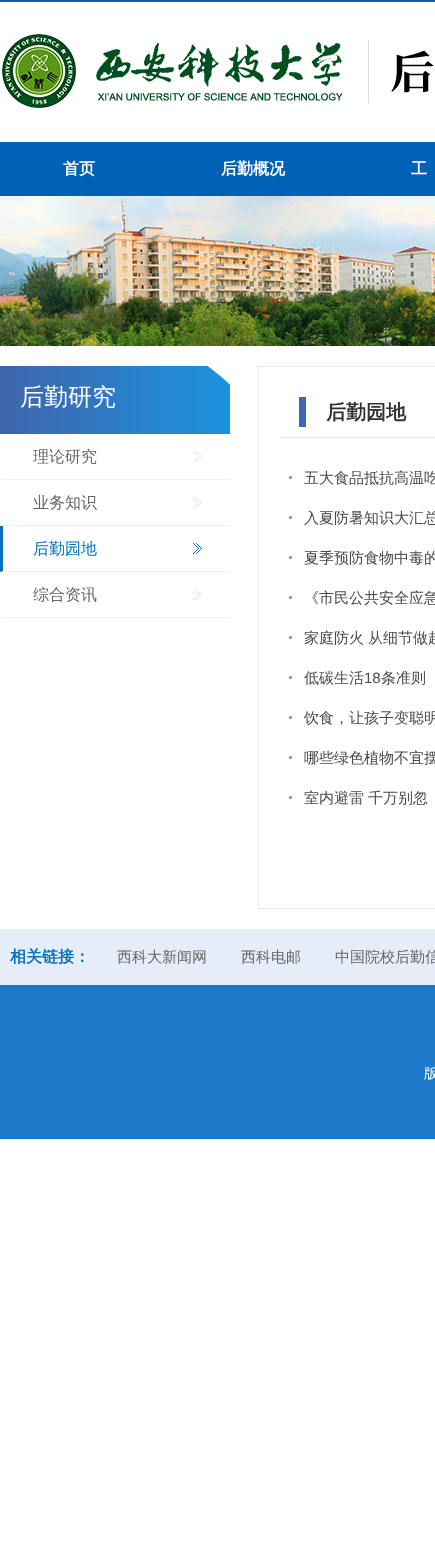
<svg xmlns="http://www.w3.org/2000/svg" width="435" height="1556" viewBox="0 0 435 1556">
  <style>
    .t1 { font: bold 16px WenQuanYi Zen Hei; fill: #fff; }
    .t2 { font: 500 24px WenQuanYi Zen Hei; fill: #fff; }
    .t3 { font: 500 16px WenQuanYi Zen Hei; fill: #666; }
    .t4 { font: 500 16px WenQuanYi Zen Hei; fill: #0570bd; }
    .t5 { font: bold 20px WenQuanYi Zen Hei; fill: #333; }
    .t6 { font: 500 15px WenQuanYi Zen Hei; fill: #4a4a4a; }
    .t7 { font: 15px Liberation Sans; fill: #4a4a4a; }
    .t8 { font: bold 16px WenQuanYi Zen Hei; fill: #0570bd; }
    .t9 { font: 500 15px WenQuanYi Zen Hei; fill: #666; }
    .t10 { font: 500 14px WenQuanYi Zen Hei; fill: #fff; }
  </style>
  <rect width="100%" height="100%" fill="#fff"/>
  <rect x="0" y="0" width="435" height="2" fill="#0061b6"/>
  <image x="2" y="34" width="432" height="74" href="images/1.png"/>
  <rect x="0" y="142" width="435" height="54" fill="#0061b6"/>
  <text x="63" y="174" class="t1">首页</text>
  <text x="221" y="174" class="t1">后勤概况</text>
  <text x="411" y="174" class="t1">工</text>
  <image x="0" y="196" width="435" height="150" href="images/2.png"/>
  <image x="0" y="366" width="230" height="68" href="images/3.png"/>
  <text x="20" y="405" class="t2">后勤研究</text>
  <image x="193" y="451" width="9" height="11" href="images/4.png"/>
  <path d="M230 480H0L3 479H230Z" fill="#f0f0f0"/>
  <path d="M0 480V434H3V479Z" fill="#fff"/>
  <text x="33" y="462" class="t3">理论研究</text>
  <image x="193" y="497" width="9" height="11" href="images/4.png"/>
  <path d="M230 526H0L3 525H230Z" fill="#f0f0f0"/>
  <path d="M0 526V480H3V525Z" fill="#fff"/>
  <text x="33" y="508" class="t3">业务知识</text>
  <image x="193" y="543" width="9" height="11" href="images/5.png"/>
  <path d="M230 572H0L3 571H230Z" fill="#f0f0f0"/>
  <path d="M0 572V526H3V571Z" fill="#0570bd"/>
  <text x="33" y="554" class="t4">后勤园地</text>
  <image x="193" y="589" width="9" height="11" href="images/4.png"/>
  <path d="M230 618H0L3 617H230Z" fill="#f0f0f0"/>
  <path d="M0 618V572H3V617Z" fill="#fff"/>
  <text x="33" y="600" class="t3">综合资讯</text>
  <rect x="258.5" y="366.5" width="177" height="542" fill="none" stroke="#eaeaea"/>
  <rect x="279" y="437" width="156" height="1" fill="#e6e6e6"/>
  <rect x="299" y="397" width="7" height="30" fill="#3e67ae"/>
  <text x="326" y="419" class="t5">后勤园地</text>
  <rect x="289" y="476" width="3" height="3" fill="#a2a2a2"/>
  <text x="304" y="483" class="t6">五大食品抵抗高温吃</text>
  <rect x="289" y="516" width="3" height="3" fill="#a2a2a2"/>
  <text x="304" y="523" class="t6">入夏防暑知识大汇总</text>
  <rect x="289" y="556" width="3" height="3" fill="#a2a2a2"/>
  <text x="304" y="563" class="t6">夏季预防食物中毒的</text>
  <rect x="289" y="596" width="3" height="3" fill="#a2a2a2"/>
  <text x="304" y="603" class="t6">《市民公共安全应急</text>
  <rect x="289" y="636" width="3" height="3" fill="#a2a2a2"/>
  <text x="304" y="643" class="t6">家庭防火</text>
  <text x="368" y="643" class="t6">从细节做起</text>
  <rect x="289" y="676" width="3" height="3" fill="#a2a2a2"/>
  <text x="304" y="683" class="t6">低碳生活</text>
  <text x="364" y="683" class="t7">18</text>
  <text x="381" y="683" class="t6">条准则</text>
  <rect x="289" y="716" width="3" height="3" fill="#a2a2a2"/>
  <text x="304" y="723" class="t6">饮食，让孩子变聪明</text>
  <rect x="289" y="756" width="3" height="3" fill="#a2a2a2"/>
  <text x="304" y="763" class="t6">哪些绿色植物不宜摆</text>
  <rect x="289" y="796" width="3" height="3" fill="#a2a2a2"/>
  <text x="304" y="803" class="t6">室内避雷</text>
  <text x="368" y="803" class="t6">千万别忽</text>
  <rect x="0" y="929" width="435" height="56" fill="#e5edf8"/>
  <text x="10" y="962" class="t8">相关链接：</text>
  <text x="117" y="962" class="t9">西科大新闻网</text>
  <text x="241" y="962" class="t9">西科电邮</text>
  <text x="335" y="962" class="t9">中国院校后勤信</text>
  <rect x="0" y="985" width="435" height="154" fill="#1d78c9"/>
  <text x="424" y="1078" class="t10">版</text>
</svg>
